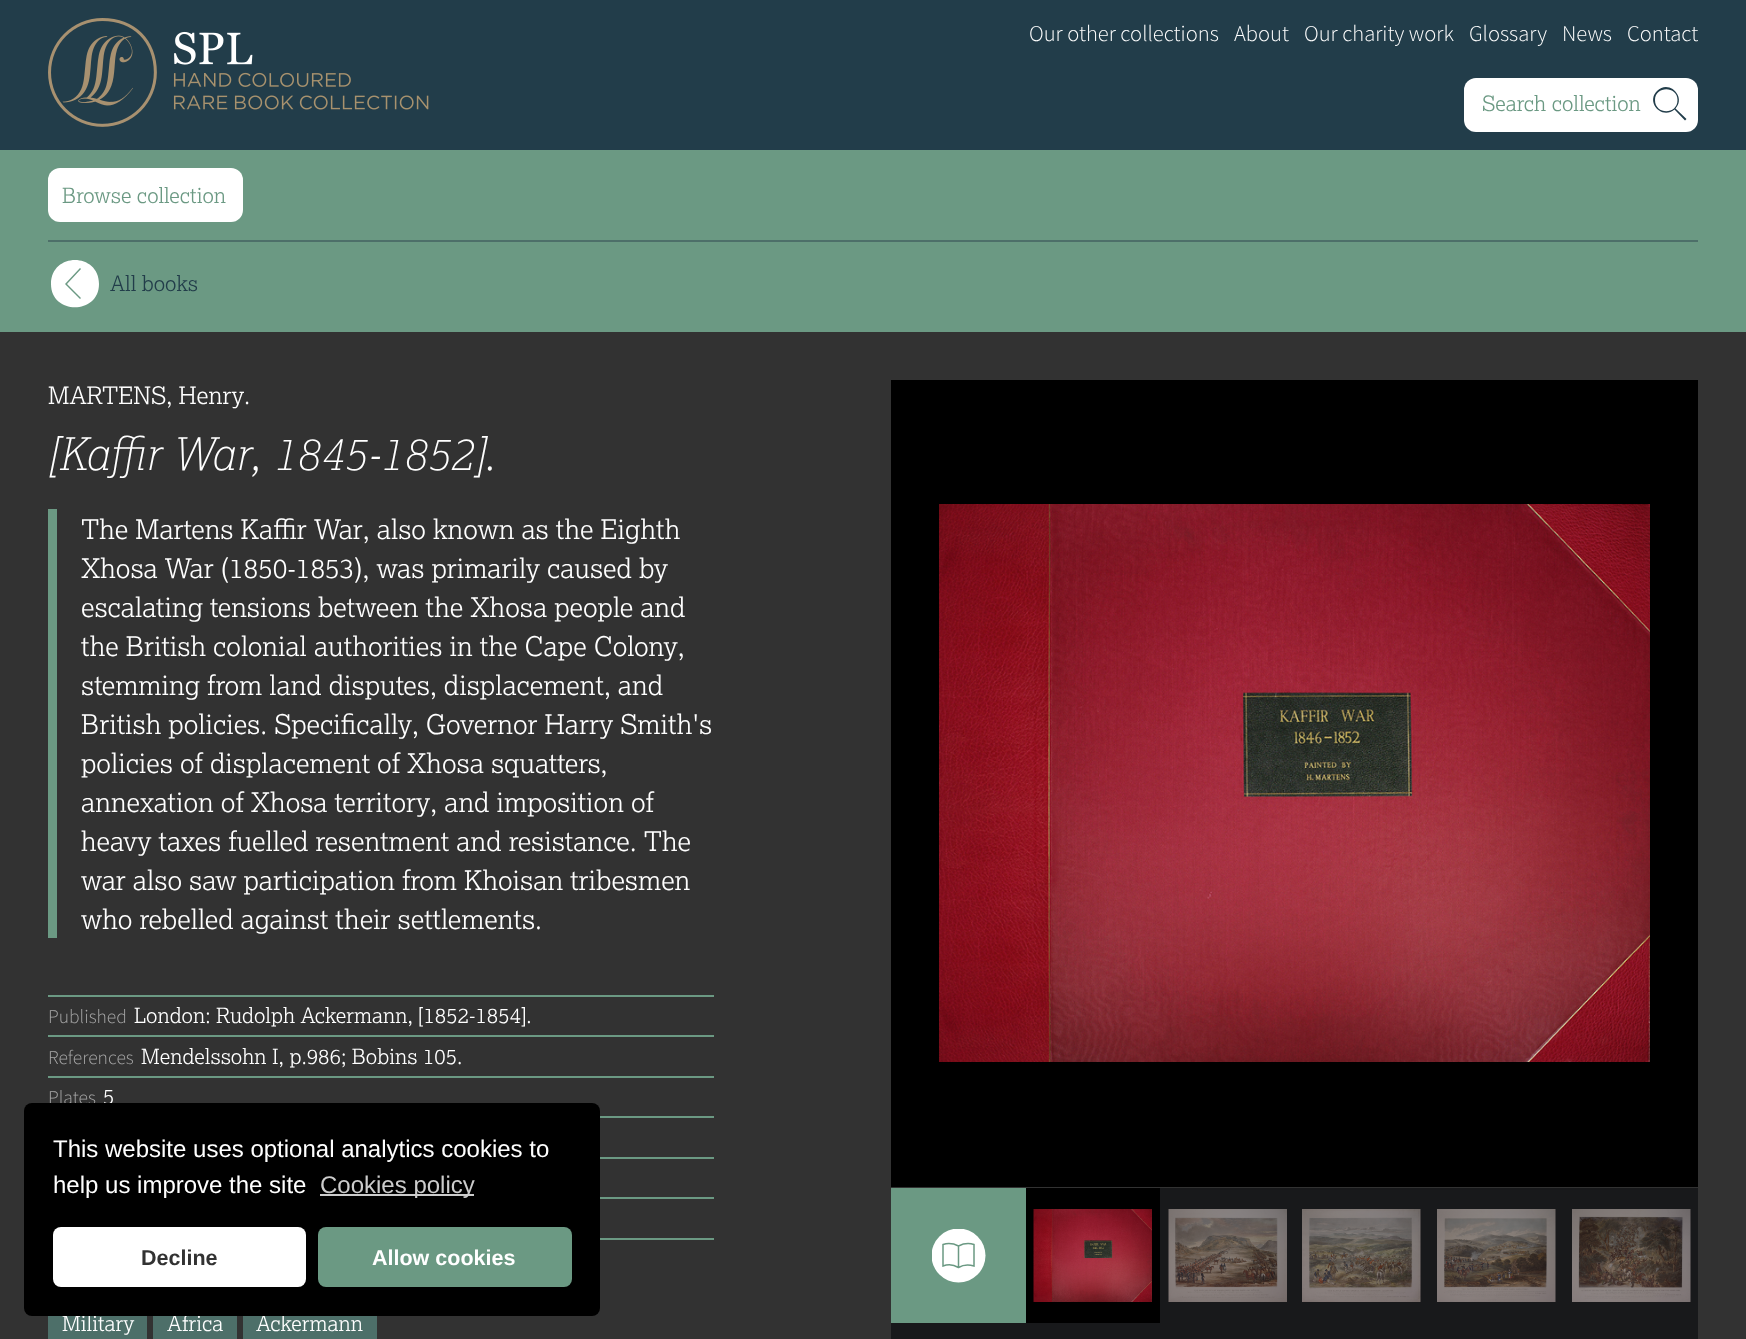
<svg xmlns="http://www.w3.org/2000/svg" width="1746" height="1339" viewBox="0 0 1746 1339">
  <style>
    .t1 { font: 300 22.5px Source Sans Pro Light; fill: #fff; }
    .t2 { font: 300 21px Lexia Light; fill: #6b9983; }
    .t3 { font: 300 21px Lexia Light; fill: #223d4a; }
    .t4 { font: 300 24px Lexia Light; fill: #fff; }
    .t5 { font: italic 100 45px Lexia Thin; fill: #fff; }
    .t6 { font: 300 27px Lexia Light; fill: #fff; }
    .t7 { font: 300 19.5px Source Sans Pro Light; fill: #a8a8a8; }
    .t8 { font: 300 21px Lexia Light; fill: #fff; }
    .t9 { font: 24px Liberation Sans; fill: #fff; }
    .t10 { font: 24px Liberation Sans; fill: #ccc; }
    .t11 { font: bold 21.5px Liberation Sans; fill: #323232; }
    .t12 { font: bold 21.5px Liberation Sans; fill: #fff; }
  </style>
  <defs>
    <clipPath id="clip1"><rect x="932" y="1229" width="54" height="54"/></clipPath>
  </defs>
  <rect width="100%" height="100%" fill="#323232"/>
  <rect x="0" y="0" width="1746" height="150" fill="#223d4a"/>
  <image x="48" y="18" width="381" height="109" href="images/1.png"/>
  <text x="1029" y="41" class="t1">Our other collections</text>
  <text x="1234" y="41" class="t1">About</text>
  <text x="1304" y="41" class="t1">Our charity work</text>
  <text x="1469" y="41" class="t1">Glossary</text>
  <text x="1562" y="41" class="t1">News</text>
  <text x="1627" y="41" class="t1">Contact</text>
  <rect x="1464" y="78" width="234" height="54" rx="12" fill="#fff"/>
  <text x="1482" y="111" class="t2">Search collection</text>
  <path d="M1674.5 109.5L1685 120.5L1686.5 119L1675.5 108.5C1686.5 97 1669 79 1657 91C1645.5 102.5 1662 120 1674.5 109.5ZM1655 100C1655 85.5 1677.5 85.5 1677.5 100C1677.5 115 1655 115 1655 100Z" fill="#223d4a" fill-rule="evenodd"/>
  <rect x="0" y="150" width="1746" height="182" fill="#6b9983"/>
  <rect x="48" y="168" width="195" height="54" rx="12" fill="#fff"/>
  <text x="62" y="203" class="t2">Browse collection</text>
  <rect x="48" y="240" width="1650" height="2" fill="#4d6f69"/>
  <path d="M65 284L80 268L81 269L67 284L81 298L80 299ZM99 284C99 252 51 252 51 284C51 315 99 315 99 284" fill="#fff"/>
  <text x="110" y="291" class="t3">All books</text>
  <text x="48" y="404" class="t4">MARTENS, Henry.</text>
  <text x="48" y="470" class="t5">[Kaffir War, 1845-1852].</text>
  <rect x="48" y="509" width="9" height="429" fill="#6b9983"/>
  <text x="81" y="539" class="t6">The Martens Kaffir War, also known as the Eighth</text>
  <text x="81" y="578" class="t6">Xhosa War (1850-1853), was primarily caused by</text>
  <text x="81" y="617" class="t6">escalating tensions between the Xhosa people and</text>
  <text x="81" y="656" class="t6">the British colonial authorities in the Cape Colony,</text>
  <text x="81" y="695" class="t6">stemming from land disputes, displacement, and</text>
  <text x="81" y="734" class="t6">British policies. Specifically, Governor Harry Smith's</text>
  <text x="81" y="773" class="t6">policies of displacement of Xhosa squatters,</text>
  <text x="81" y="812" class="t6">annexation of Xhosa territory, and imposition of</text>
  <text x="81" y="851" class="t6">heavy taxes fuelled resentment and resistance. The</text>
  <text x="81" y="890" class="t6">war also saw participation from Khoisan tribesmen</text>
  <text x="81" y="929" class="t6">who rebelled against their settlements.</text>
  <rect x="891" y="380" width="807" height="807" fill="#000"/>
  <image x="939" y="504" width="711" height="558" href="images/2.png"/>
  <rect x="891" y="1188" width="807" height="151" fill="#18191b"/>
  <rect x="891" y="1188" width="135" height="135" fill="#6b9983"/>
  <g clip-path="url(#clip1)">
    <circle cx="958.5" cy="1255.5" r="27" fill="#fff"/>
  </g>
  <path d="M958.5 1267.5C963.5 1264.5 969 1264.5 974 1266V1244.5C969 1243 963.5 1243.5 958.5 1246C953.5 1243.5 948 1243 943 1244.5V1266C948 1264 953.5 1264.5 958.5 1267.5ZM958.5 1246V1267.5" fill="none" stroke="#6b9983" stroke-width="1.5"/>
  <rect x="1026" y="1188" width="134" height="135" fill="#000"/>
  <image x="1033" y="1209" width="119" height="93" href="images/3.png"/>
  <image x="1168" y="1209" width="119" height="93" href="images/4.png"/>
  <image x="1302" y="1209" width="119" height="93" href="images/5.png"/>
  <image x="1437" y="1209" width="119" height="93" href="images/6.png"/>
  <image x="1572" y="1209" width="119" height="93" href="images/7.png"/>
  <rect x="48" y="995" width="666" height="2" fill="#6b9983"/>
  <text x="48" y="1023" class="t7">Published</text>
  <text x="134" y="1023" class="t8">London: Rudolph Ackermann, [1852-1854].</text>
  <rect x="48" y="1035" width="666" height="2" fill="#6b9983"/>
  <text x="48" y="1064" class="t7">References</text>
  <text x="141" y="1064" class="t8">Mendelssohn I, p.986; Bobins 105.</text>
  <rect x="48" y="1076" width="666" height="2" fill="#6b9983"/>
  <text x="48" y="1104" class="t7">Plates</text>
  <text x="103" y="1104" class="t8">5</text>
  <rect x="600" y="1116" width="114" height="2" fill="#6b9983"/>
  <rect x="600" y="1157" width="114" height="2" fill="#6b9983"/>
  <rect x="600" y="1197" width="114" height="2" fill="#6b9983"/>
  <rect x="600" y="1238" width="114" height="2" fill="#6b9983"/>
  <rect x="48" y="1316" width="99" height="23" fill="#4d6f69"/>
  <text x="62" y="1331" class="t8">Military</text>
  <rect x="153" y="1316" width="84" height="23" fill="#4d6f69"/>
  <text x="167" y="1331" class="t8">Africa</text>
  <rect x="243" y="1316" width="134" height="23" fill="#4d6f69"/>
  <text x="256" y="1331" class="t8">Ackermann</text>
  <rect x="24" y="1103" width="576" height="213" rx="8" fill="#000"/>
  <text x="53" y="1157" class="t9">This website uses optional analytics cookies to</text>
  <text x="53" y="1193" class="t9">help us improve the site</text>
  <rect x="320" y="1194" width="154" height="2" fill="#ccc"/>
  <text x="320" y="1193" class="t10">Cookies policy</text>
  <rect x="53" y="1227" width="253" height="60" rx="8" fill="#fff"/>
  <text x="141" y="1265" class="t11">Decline</text>
  <rect x="318" y="1227" width="254" height="60" rx="8" fill="#6b9983"/>
  <text x="372" y="1265" class="t12">Allow cookies</text>
</svg>
